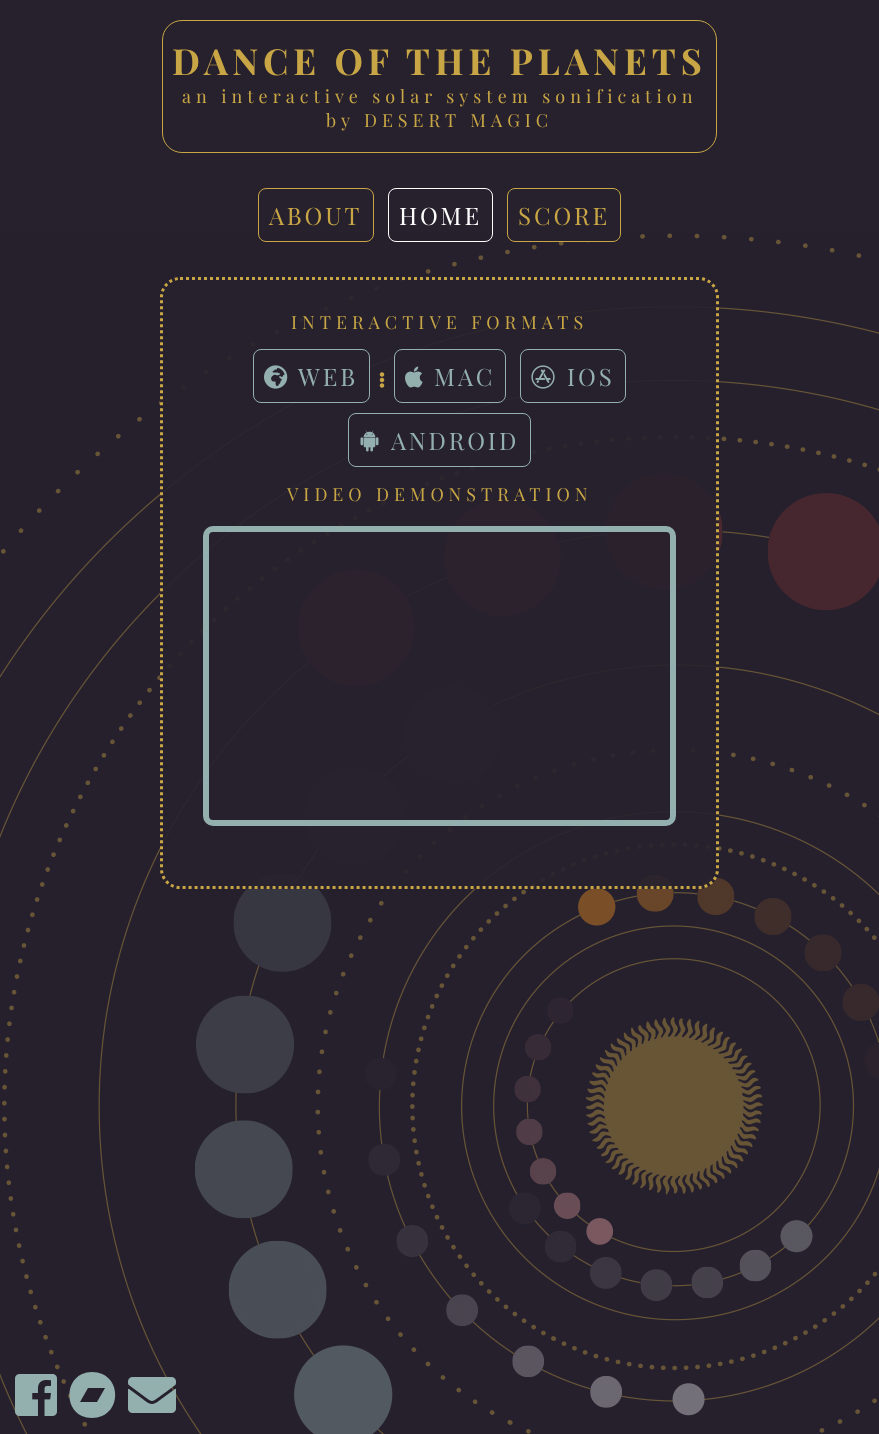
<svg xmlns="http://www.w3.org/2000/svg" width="879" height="1434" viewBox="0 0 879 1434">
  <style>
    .t1 { font: bold 36px Playfair Display; letter-spacing: 5px; fill: #c8a645; }
    .t2 { font: 18px Playfair Display; letter-spacing: 5px; fill: #c8a645; }
    .t3 { font: 24px Playfair Display; letter-spacing: 3px; fill: #c8a645; }
    .t4 { font: 24px Playfair Display; letter-spacing: 3px; fill: #fff; }
    .t5 { font: 24px Playfair Display; letter-spacing: 3px; fill: #93b0ae; }
  </style>
  <rect width="100%" height="100%" fill="#27212d"/>
  <rect x="162.5" y="20.5" width="554" height="132" rx="19.5" fill="none" stroke="#c8a645"/>
  <text x="172" y="75" class="t1">DANCE OF THE PLANETS</text>
  <text x="182" y="103" class="t2">an interactive solar system sonification</text>
  <text x="326" y="127" class="t2">by DESERT MAGIC</text>
  <image x="0" y="233" width="879" height="1201" href="images/6.png"/>
  <rect x="258.5" y="188.5" width="115" height="53" rx="7.5" fill="none" stroke="#c8a645"/>
  <text x="269" y="225" class="t3">ABOUT</text>
  <rect x="388.5" y="188.5" width="104" height="53" rx="7.5" fill="none" stroke="#fff"/>
  <text x="399" y="225" class="t4">HOME</text>
  <rect x="507.5" y="188.5" width="113" height="53" rx="7.5" fill="#27212d" stroke="#c8a645"/>
  <text x="518" y="225" class="t3">SCORE</text>
  <rect x="160" y="277" width="559" height="612" rx="20" fill="#27212de6"/>
  <path d="M180 278.5H699C709 278.5 717.5 287 717.5 297V869C717.5 879 709 887.5 699 887.5H180C170 887.5 161.5 879 161.5 869V297C161.5 287 170 278.5 180 278.5Z" fill="none" stroke="#c8a645" stroke-width="3" stroke-dasharray="3 3"/>
  <text x="291" y="329" class="t2">INTERACTIVE FORMATS</text>
  <rect x="253.5" y="349.5" width="116" height="53" rx="7.5" fill="#27212d" stroke="#93b0ae"/>
  <image x="264" y="365" width="24" height="24" href="images/1.png"/>
  <text x="298" y="386" class="t5">WEB</text>
  <image x="379" y="372" width="6" height="16" href="images/2.png"/>
  <rect x="394.5" y="349.5" width="111" height="53" rx="7.5" fill="#27212d" stroke="#93b0ae"/>
  <image x="405" y="366" width="18" height="22" href="images/3.png"/>
  <text x="434" y="386" class="t5">MAC</text>
  <rect x="520.5" y="349.5" width="105" height="53" rx="7.5" fill="#27212d" stroke="#93b0ae"/>
  <image x="531" y="365" width="24" height="24" href="images/4.png"/>
  <text x="567" y="386" class="t5">IOS</text>
  <rect x="348.5" y="413.5" width="182" height="53" rx="7.5" fill="#27212d" stroke="#93b0ae"/>
  <image x="360" y="430" width="19" height="22" href="images/5.png"/>
  <text x="391" y="450" class="t5">ANDROID</text>
  <text x="287" y="501" class="t2">VIDEO DEMONSTRATION</text>
  <rect x="206" y="529" width="467" height="294" rx="7" fill="none" stroke="#93b0ae" stroke-width="6"/>
  <image x="15" y="1374" width="42" height="42" href="images/7.png"/>
  <path d="M92 1372C62 1372 62 1418 92 1418C123 1418 123 1372 92 1372ZM97 1402H80L88 1388H105Z" fill="#93b0ae"/>
  <image x="128" y="1377" width="48" height="36" href="images/8.png"/>
</svg>
